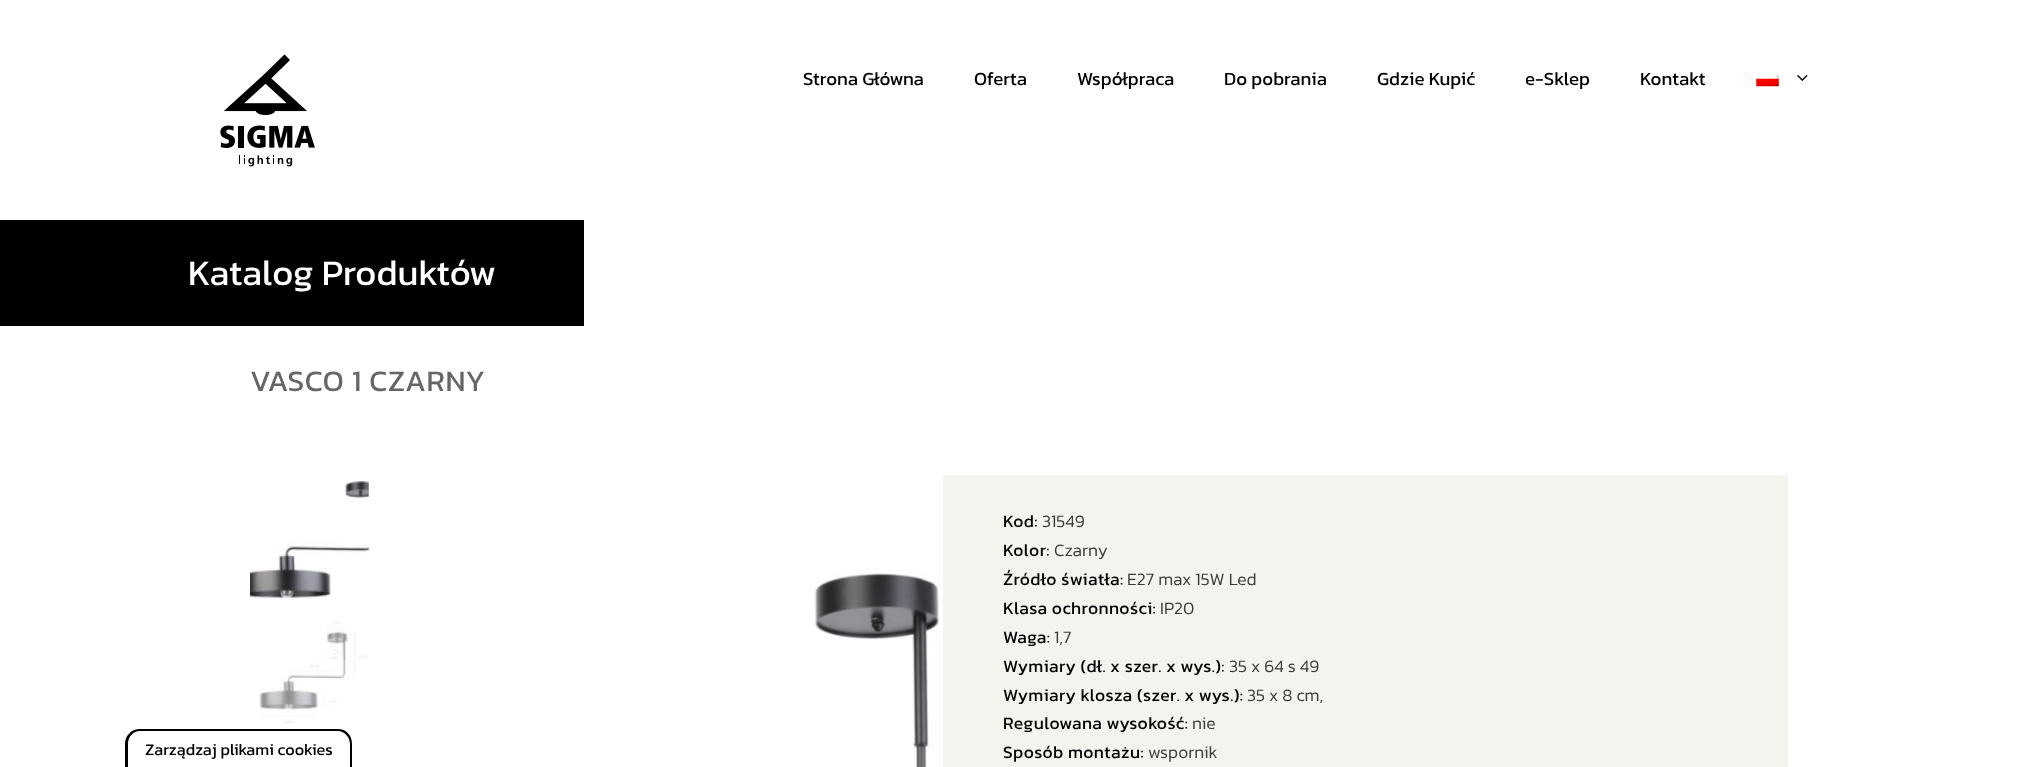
<svg xmlns="http://www.w3.org/2000/svg" width="2037" height="767" viewBox="0 0 2037 767">
  <style>
    .t1 { font: 18.75px Kanit; fill: #000; }
    .t2 { font: 36.25px Kanit; fill: #fff; }
    .t3 { font: 30px Kanit; letter-spacing: 0.6px; fill: #666; }
    .t4 { font: 16.25px Kanit; fill: #000; }
    .t5 { font: 17.5px Kanit; letter-spacing: 0.4px; fill: #000; }
    .t6 { font: 300 17.5px Kanit; fill: #3a3a3a; }
  </style>
  <rect width="100%" height="100%" fill="#fff"/>
  <image x="220" y="54" width="95" height="113" href="images/1.png"/>
  <text x="803" y="85" class="t1">Strona Główna</text>
  <text x="974" y="85" class="t1">Oferta</text>
  <text x="1077" y="85" class="t1">Współpraca</text>
  <text x="1224" y="85" class="t1">Do pobrania</text>
  <text x="1377" y="85" class="t1">Gdzie Kupić</text>
  <text x="1525" y="85" class="t1">e-Sklep</text>
  <text x="1640" y="85" class="t1">Kontakt</text>
  <image x="1756" y="73" width="23" height="14" href="images/2.png"/>
  <image x="1797" y="75" width="11" height="6" href="images/3.png"/>
  <rect x="0" y="220" width="584" height="106" fill="#000"/>
  <text x="188" y="285" class="t2">Katalog Produktów</text>
  <text x="250" y="391" class="t3">VASCO 1 CZARNY</text>
  <path d="M140 729H338C346 729 352 735 352 744V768H125V744C125 735 132 729 140 729ZM140 731H338C344 731 350 737 350 744V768H128V744C128 737 133 731 140 731Z" fill="#000" fill-rule="evenodd"/>
  <text x="145" y="755" class="t4">Zarządzaj plikami cookies</text>
  <rect x="943" y="475" width="845" height="292" fill="#f5f3ee"/>
  <image x="250" y="481" width="119" height="119" href="images/4.png"/>
  <image x="259" y="621" width="109" height="103" href="images/5.png"/>
  <image x="814" y="573" width="126" height="194" href="images/6.png"/>
  <text x="1003" y="527" class="t5">Kod:</text>
  <text x="1042" y="527" class="t6">31549</text>
  <text x="1003" y="556" class="t5">Kolor:</text>
  <text x="1054" y="556" class="t6">Czarny</text>
  <text x="1003" y="585" class="t5">Źródło światła:</text>
  <text x="1127" y="585" class="t6">E27 max 15W Led</text>
  <text x="1003" y="614" class="t5">Klasa ochronności:</text>
  <text x="1160" y="614" class="t6">IP20</text>
  <text x="1003" y="643" class="t5">Waga:</text>
  <text x="1054" y="643" class="t6">1,7</text>
  <text x="1003" y="672" class="t5">Wymiary (dł. x szer. x wys.):</text>
  <text x="1229" y="672" class="t6">35 x 64 s 49</text>
  <text x="1003" y="701" class="t5">Wymiary klosza (szer. x wys.):</text>
  <text x="1247" y="701" class="t6">35 x 8 cm,</text>
  <text x="1003" y="729" class="t5">Regulowana wysokość:</text>
  <text x="1192" y="729" class="t6">nie</text>
  <text x="1003" y="758" class="t5">Sposób montażu:</text>
  <text x="1148" y="758" class="t6">wspornik</text>
</svg>
